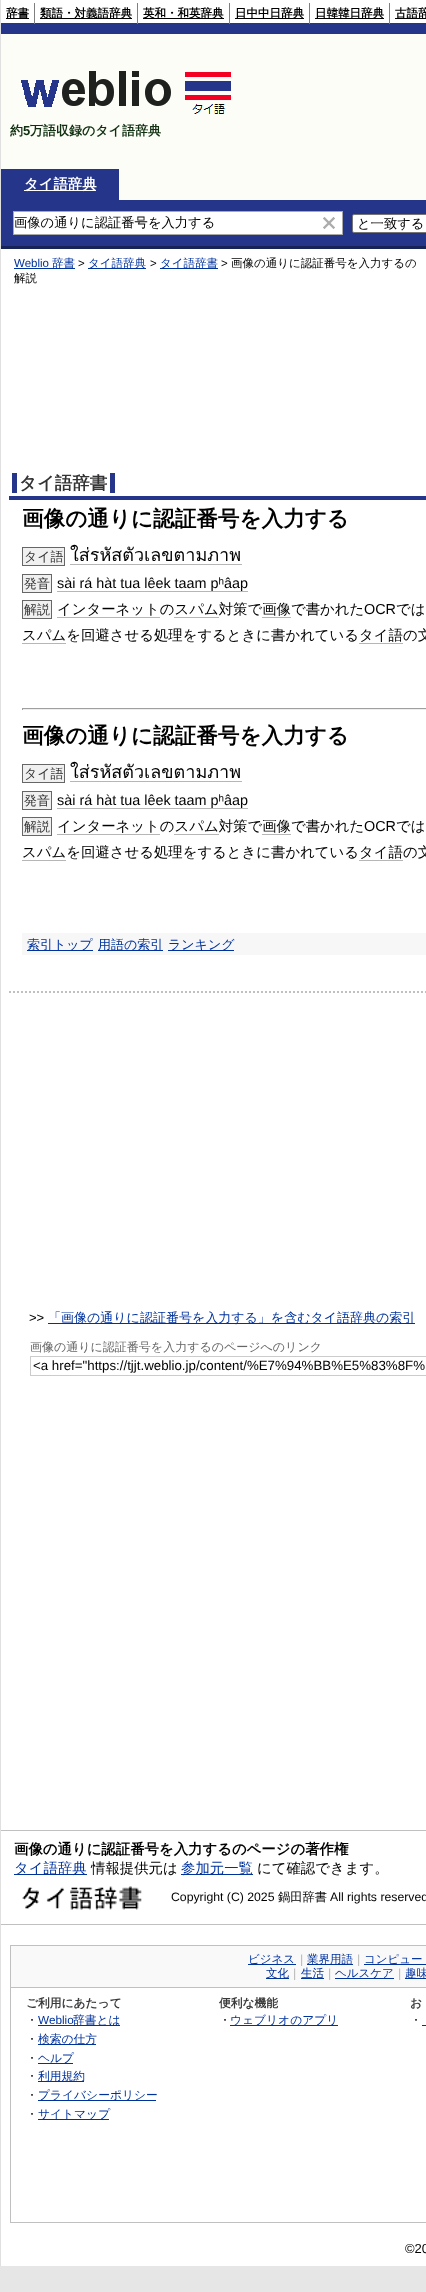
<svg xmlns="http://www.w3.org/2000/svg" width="426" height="2292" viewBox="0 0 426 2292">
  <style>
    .t1 { font: bold 11.5px WenQuanYi Zen Hei; fill: #000; }
    .t2 { font: bold 13px WenQuanYi Zen Hei; fill: #103011; }
    .t3 { font: bold 13px Liberation Sans; fill: #103011; }
    .t4 { font: bold 14.4px WenQuanYi Zen Hei; fill: #fff; }
    .t5 { font: 500 13.3px WenQuanYi Zen Hei; fill: #000; }
    .t6 { font: 11.5px Liberation Sans; fill: #00329b; }
    .t7 { font: 500 11.5px WenQuanYi Zen Hei; fill: #00329b; }
    .t8 { font: 11.5px Liberation Sans; fill: #000; }
    .t9 { font: 500 11.5px WenQuanYi Zen Hei; fill: #000; }
    .t10 { font: bold 17.5px WenQuanYi Zen Hei; fill: #333; }
    .t11 { font: bold 21.6px WenQuanYi Zen Hei; fill: #000; }
    .t12 { font: 500 13px WenQuanYi Zen Hei; fill: #333; }
    .t13 { font: 18px Loma; fill: #000; }
    .t14 { font: 14.4px Liberation Sans; fill: #000; }
    .t15 { font: 500 14.4px WenQuanYi Zen Hei; fill: #000; }
    .t16 { font: 500 13px WenQuanYi Zen Hei; fill: #00329b; }
    .t17 { font: 13px Liberation Sans; fill: #000; }
    .t18 { font: 500 12px WenQuanYi Zen Hei; fill: #666; }
    .t19 { font: 13.3px Liberation Sans; fill: #000; }
    .t20 { font: bold 14.4px WenQuanYi Zen Hei; fill: #000; }
    .t21 { font: 500 14.4px WenQuanYi Zen Hei; fill: #00329b; }
    .t22 { font: 12.25px Liberation Sans; fill: #000; }
    .t23 { font: 500 12.25px WenQuanYi Zen Hei; fill: #000; }
    .t24 { font: 500 11.5px WenQuanYi Zen Hei; fill: #9e9e9e; }
    .t25 { font: bold 11.75px WenQuanYi Zen Hei; fill: #393939; }
    .t26 { font: 500 11.75px WenQuanYi Zen Hei; fill: #000; }
    .t27 { font: 11.75px Liberation Sans; fill: #00329b; }
    .t28 { font: 500 11.75px WenQuanYi Zen Hei; fill: #00329b; }
  </style>
  <rect width="100%" height="100%" fill="#e6e6e6"/>
  <rect x="1" y="0" width="425" height="2266" fill="#fff"/>
  <rect x="0" y="0" width="1" height="2266" fill="#e0e0e0"/>
  <rect x="1" y="23" width="425" height="11" fill="#25368a"/>
  <rect x="34" y="3" width="1" height="21" fill="#7f7f7f"/>
  <rect x="6" y="18" width="23" height="1" fill="#000"/>
  <text x="6" y="17" class="t1">辞書</text>
  <rect x="137" y="3" width="1" height="21" fill="#7f7f7f"/>
  <rect x="40" y="18" width="92" height="1" fill="#000"/>
  <text x="40" y="17" class="t1">類語・対義語辞典</text>
  <rect x="229" y="3" width="1" height="21" fill="#7f7f7f"/>
  <rect x="143" y="18" width="81" height="1" fill="#000"/>
  <text x="143" y="17" class="t1">英和・和英辞典</text>
  <rect x="309" y="3" width="1" height="21" fill="#7f7f7f"/>
  <rect x="235" y="18" width="69" height="1" fill="#000"/>
  <text x="235" y="17" class="t1">日中中日辞典</text>
  <rect x="389" y="3" width="1" height="21" fill="#7f7f7f"/>
  <rect x="315" y="18" width="69" height="1" fill="#000"/>
  <text x="315" y="17" class="t1">日韓韓日辞典</text>
  <rect x="395" y="18" width="31" height="1" fill="#000"/>
  <text x="395" y="17" class="t1">古語辞</text>
  <rect x="1" y="34" width="425" height="135" fill="#fdfdf7"/>
  <image x="21" y="71" width="210" height="43" href="images/1.png"/>
  <text x="10" y="135" class="t2">約</text>
  <text x="23" y="135" class="t3">5</text>
  <text x="30" y="135" class="t2">万語収録のタイ語辞典</text>
  <rect x="119" y="169" width="307" height="31" fill="#fdfdf7"/>
  <rect x="1" y="169" width="118" height="31" fill="#25368a"/>
  <rect x="24" y="190" width="72" height="1" fill="#fff"/>
  <text x="24" y="189" class="t4">タイ語辞典</text>
  <rect x="1" y="200" width="425" height="46" fill="#25368a"/>
  <rect x="1" y="246" width="425" height="3" fill="#172357"/>
  <rect x="14" y="212" width="328" height="22" fill="#fff"/>
  <rect x="13" y="211" width="330" height="1" fill="#a9a9a9"/>
  <rect x="342" y="211" width="1" height="24" fill="#a9a9a9"/>
  <rect x="13" y="234" width="330" height="1" fill="#a9a9a9"/>
  <rect x="13" y="211" width="1" height="24" fill="#a9a9a9"/>
  <text x="14" y="227" class="t5">画像の通りに認証番号を入力する</text>
  <image x="323" y="217" width="12" height="12" href="images/2.png"/>
  <rect x="352.5" y="214.5" width="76" height="18" rx="1.5" fill="#fff" stroke="#767676"/>
  <text x="357" y="228" class="t5">と一致する</text>
  <text x="14" y="267" class="t6">Weblio</text>
  <rect x="14" y="268" width="61" height="1" fill="#00329b"/>
  <text x="52" y="267" class="t7">辞書</text>
  <text x="78" y="267" class="t8">&gt;</text>
  <rect x="88" y="268" width="58" height="1" fill="#00329b"/>
  <text x="88" y="267" class="t7">タイ語辞典</text>
  <text x="150" y="267" class="t8">&gt;</text>
  <rect x="160" y="268" width="58" height="1" fill="#00329b"/>
  <text x="160" y="267" class="t7">タイ語辞書</text>
  <text x="221" y="267" class="t8">&gt;</text>
  <text x="231" y="267" class="t9">画像の通りに認証番号を入力するの</text>
  <text x="14" y="282" class="t9">解説</text>
  <rect x="9" y="496" width="417" height="4" fill="#25368a"/>
  <text x="19" y="489" class="t10">タイ語辞書</text>
  <rect x="110" y="473" width="5" height="20" fill="#25368a"/>
  <rect x="12" y="473" width="5" height="20" fill="#25368a"/>
  <text x="22" y="526" class="t11">画像の通りに認証番号を入力する</text>
  <rect x="22.5" y="547.5" width="42" height="18" fill="#f0f0f0" stroke="#666"/>
  <text x="24" y="561" class="t12">タイ語</text>
  <text x="70" y="561" class="t13">ใส่รหัสตัวเลขตามภาพ</text>
  <rect x="70" y="564" width="172" height="1" fill="#b5b6b5"/>
  <rect x="22.5" y="574.5" width="29" height="18" fill="#f0f0f0" stroke="#666"/>
  <text x="24" y="588" class="t12">発音</text>
  <text x="57" y="588" class="t14">sài rá hàt tua lêek taam pʰâap</text>
  <rect x="57" y="591" width="191" height="1" fill="#b5b6b5"/>
  <rect x="22.5" y="600.5" width="29" height="18" fill="#f0f0f0" stroke="#666"/>
  <text x="24" y="614" class="t12">解説</text>
  <text x="57" y="614" class="t15">インターネットのスパム対策で画像で書かれた</text>
  <rect x="57" y="617" width="103" height="1" fill="#b5b6b5"/>
  <text x="364" y="614" class="t14">OCR</text>
  <text x="396" y="614" class="t15">では</text>
  <rect x="174" y="617" width="45" height="1" fill="#b5b6b5"/>
  <rect x="262" y="617" width="29" height="1" fill="#b5b6b5"/>
  <text x="22" y="640" class="t15">スパムを回避させる処理をするときに書かれているタイ語の文</text>
  <rect x="22" y="643" width="44" height="1" fill="#b5b6b5"/>
  <rect x="359" y="643" width="44" height="1" fill="#b5b6b5"/>
  <rect x="22" y="708" width="404" height="1" fill="#9f9f9f"/>
  <rect x="22" y="709" width="404" height="1" fill="#eee"/>
  <rect x="22" y="708" width="1" height="2" fill="#9f9f9f"/>
  <text x="22" y="743" class="t11">画像の通りに認証番号を入力する</text>
  <rect x="22.5" y="764.5" width="42" height="18" fill="#f0f0f0" stroke="#666"/>
  <text x="24" y="778" class="t12">タイ語</text>
  <text x="70" y="778" class="t13">ใส่รหัสตัวเลขตามภาพ</text>
  <rect x="70" y="781" width="172" height="1" fill="#b5b6b5"/>
  <rect x="22.5" y="791.5" width="29" height="18" fill="#f0f0f0" stroke="#666"/>
  <text x="24" y="805" class="t12">発音</text>
  <text x="57" y="805" class="t14">sài rá hàt tua lêek taam pʰâap</text>
  <rect x="57" y="808" width="191" height="1" fill="#b5b6b5"/>
  <rect x="22.5" y="817.5" width="29" height="18" fill="#f0f0f0" stroke="#666"/>
  <text x="24" y="831" class="t12">解説</text>
  <text x="57" y="831" class="t15">インターネットのスパム対策で画像で書かれた</text>
  <rect x="57" y="834" width="103" height="1" fill="#b5b6b5"/>
  <text x="364" y="831" class="t14">OCR</text>
  <text x="396" y="831" class="t15">では</text>
  <rect x="174" y="834" width="45" height="1" fill="#b5b6b5"/>
  <rect x="262" y="834" width="29" height="1" fill="#b5b6b5"/>
  <text x="22" y="857" class="t15">スパムを回避させる処理をするときに書かれているタイ語の文</text>
  <rect x="22" y="860" width="44" height="1" fill="#b5b6b5"/>
  <rect x="359" y="860" width="44" height="1" fill="#b5b6b5"/>
  <rect x="22" y="933" width="404" height="22" fill="#f7f7f7"/>
  <rect x="27" y="950" width="66" height="1" fill="#00329b"/>
  <text x="27" y="949" class="t16">索引トップ</text>
  <rect x="98" y="950" width="65" height="1" fill="#00329b"/>
  <text x="98" y="949" class="t16">用語の索引</text>
  <rect x="168" y="950" width="66" height="1" fill="#00329b"/>
  <text x="168" y="949" class="t16">ランキング</text>
  <path d="M9 992H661" fill="none" stroke="#c0c0c0" stroke-width="2" stroke-dasharray="2 2"/>
  <text x="29" y="1322" class="t17">&gt;&gt;</text>
  <rect x="48" y="1323" width="367" height="1" fill="#00329b"/>
  <text x="48" y="1322" class="t16">「画像の通りに認証番号を入力する」を含むタイ語辞典の索引</text>
  <text x="30" y="1351" class="t18">画像の通りに認証番号を入力するのページへのリンク</text>
  <rect x="30.5" y="1356.5" width="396" height="19" fill="none" stroke="#ccc"/>
  <text x="33" y="1370" class="t19">&lt;a href="https://tjjt.weblio.jp/content/%E7%94%BB%E5%83%8F%</text>
  <rect x="1" y="1830" width="425" height="1" fill="#c0c0c0"/>
  <text x="14" y="1854" class="t20">画像の通りに認証番号を入力するのページの著作権</text>
  <rect x="14" y="1874" width="73" height="1" fill="#00329b"/>
  <text x="14" y="1873" class="t21">タイ語辞典</text>
  <text x="91" y="1873" class="t15">情報提供元は</text>
  <rect x="181" y="1874" width="72" height="1" fill="#00329b"/>
  <text x="181" y="1873" class="t21">参加元一覧</text>
  <text x="257" y="1873" class="t15">にて確認できます。</text>
  <image x="22" y="1886" width="120" height="24" href="images/3.png"/>
  <text x="171" y="1901" class="t22">Copyright (C) 2025</text>
  <text x="278" y="1901" class="t23">鍋田辞書</text>
  <text x="330" y="1901" class="t22">All rights reserved</text>
  <rect x="1" y="1924" width="425" height="1" fill="#c0c0c0"/>
  <rect x="10.5" y="1945.5" width="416" height="277" fill="none" stroke="#c0c0c0"/>
  <rect x="11" y="1946" width="415" height="41" fill="#f9f9f9"/>
  <rect x="11" y="1987" width="415" height="1" fill="#c0c0c0"/>
  <rect x="248" y="1964" width="48" height="1" fill="#00329b"/>
  <text x="248" y="1963" class="t7">ビジネス</text>
  <text x="296" y="1963" class="t24">｜</text>
  <rect x="307" y="1964" width="46" height="1" fill="#00329b"/>
  <text x="307" y="1963" class="t7">業界用語</text>
  <text x="353" y="1963" class="t24">｜</text>
  <text x="364" y="1963" class="t7">コンピュー</text>
  <rect x="364" y="1964" width="62" height="1" fill="#00329b"/>
  <rect x="266" y="1978" width="23" height="1" fill="#00329b"/>
  <text x="266" y="1977" class="t7">文化</text>
  <text x="289" y="1977" class="t24">｜</text>
  <rect x="301" y="1978" width="23" height="1" fill="#00329b"/>
  <text x="301" y="1977" class="t7">生活</text>
  <text x="324" y="1977" class="t24">｜</text>
  <rect x="335" y="1978" width="59" height="1" fill="#00329b"/>
  <text x="335" y="1977" class="t7">ヘルスケア</text>
  <text x="394" y="1977" class="t24">｜</text>
  <rect x="405" y="1978" width="21" height="1" fill="#00329b"/>
  <text x="405" y="1977" class="t7">趣味</text>
  <text x="26" y="2007" class="t25">ご利用にあたって</text>
  <text x="26" y="2024" class="t26">・</text>
  <text x="38" y="2024" class="t27">Weblio</text>
  <rect x="38" y="2025" width="82" height="1" fill="#00329b"/>
  <text x="73" y="2024" class="t28">辞書とは</text>
  <text x="26" y="2043" class="t26">・</text>
  <rect x="38" y="2044" width="58" height="1" fill="#00329b"/>
  <text x="38" y="2043" class="t28">検索の仕方</text>
  <text x="26" y="2062" class="t26">・</text>
  <rect x="38" y="2063" width="35" height="1" fill="#00329b"/>
  <text x="38" y="2062" class="t28">ヘルプ</text>
  <text x="26" y="2080" class="t26">・</text>
  <rect x="38" y="2081" width="46" height="1" fill="#00329b"/>
  <text x="38" y="2080" class="t28">利用規約</text>
  <text x="26" y="2099" class="t26">・</text>
  <rect x="38" y="2100" width="118" height="1" fill="#00329b"/>
  <text x="38" y="2099" class="t28">プライバシーポリシー</text>
  <text x="26" y="2118" class="t26">・</text>
  <rect x="38" y="2119" width="71" height="1" fill="#00329b"/>
  <text x="38" y="2118" class="t28">サイトマップ</text>
  <text x="219" y="2007" class="t25">便利な機能</text>
  <text x="219" y="2024" class="t26">・</text>
  <rect x="230" y="2025" width="108" height="1" fill="#00329b"/>
  <text x="230" y="2024" class="t28">ウェブリオのアプリ</text>
  <text x="410" y="2007" class="t25">お</text>
  <text x="410" y="2024" class="t26">・</text>
  <rect x="422" y="2025" width="4" height="1" fill="#00329b"/>
  <text x="405" y="2253" class="t17">©20</text>
</svg>
